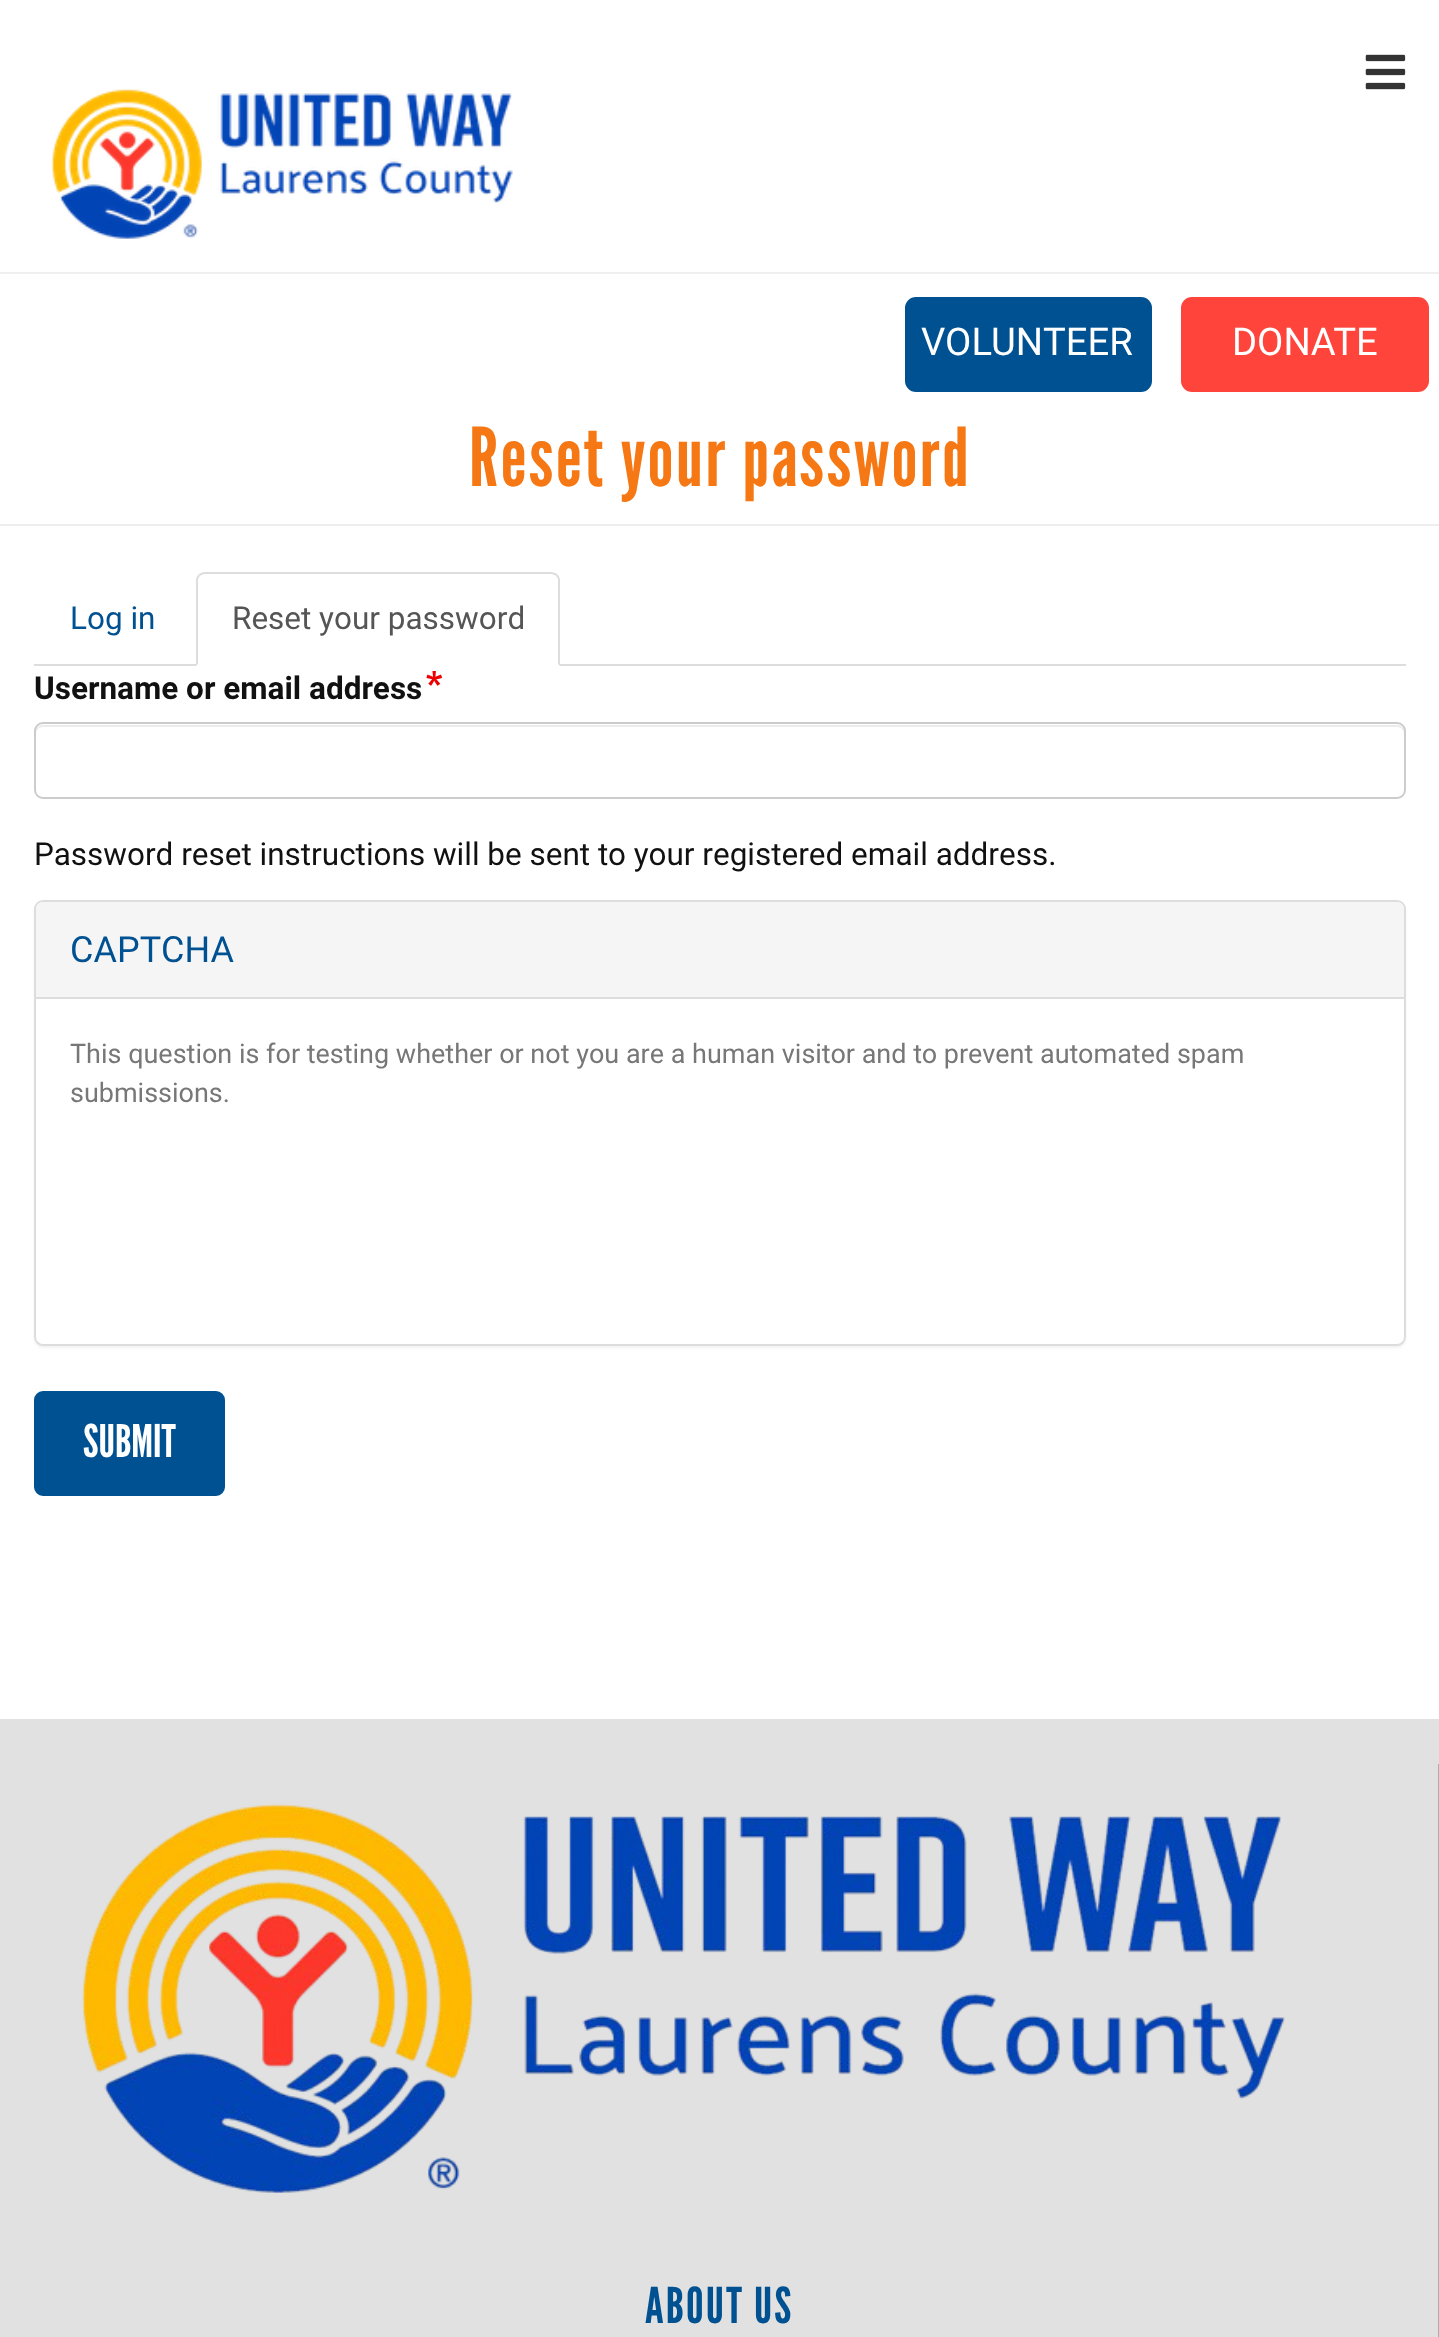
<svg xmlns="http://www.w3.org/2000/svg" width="1439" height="2337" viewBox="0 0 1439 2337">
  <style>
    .t1 { font: 38.25px Roboto; fill: #fff; }
    .t2 { font: 81px League Gothic; letter-spacing: 2.25px; fill: #f57814; }
    .t3 { font: 31.5px Roboto; fill: #005191; }
    .t4 { font: 31.5px Roboto; fill: #555; }
    .t5 { font: bold 31.5px Roboto; fill: #111; }
    .t6 { font: 31.5px Roboto; fill: #111; }
    .t7 { font: 36px Roboto; fill: #005191; }
    .t8 { font: 27px Roboto; fill: #777; }
    .t9 { font: 45px League Gothic; fill: #fff; }
    .t10 { font: 49.5px League Gothic; letter-spacing: 2.25px; fill: #005191; }
  </style>
  <rect width="100%" height="100%" fill="#fff"/>
  <rect x="0" y="272" width="1439" height="2" fill="#efefef"/>
  <image x="1365" y="54" width="41" height="36" href="images/1.png"/>
  <image x="51" y="89" width="462" height="150" href="images/2.png"/>
  <rect x="905" y="297" width="247" height="95" rx="11" fill="#005191"/>
  <text x="921" y="355" class="t1">VOLUNTEER</text>
  <rect x="1181" y="297" width="248" height="95" rx="11" fill="#ff443b"/>
  <text x="1232" y="355" class="t1">DONATE</text>
  <rect x="0" y="524" width="1439" height="2" fill="#eee"/>
  <text x="469" y="486" class="t2">Reset your password</text>
  <rect x="34" y="664" width="1372" height="2" fill="#ddd"/>
  <text x="70" y="629" class="t3">Log in</text>
  <path d="M205 572H551C556 572 560 576 560 581V666H196V581C196 576 200 572 205 572Z" fill="#fff"/>
  <path d="M205 572C203 572 200 573 199 574L200 576C201 575 203 574 205 574H551C553 574 555 575 556 576L557 574C556 573 553 572 551 572Z" fill="#ddd"/>
  <path d="M560 666V580C560 578 559 576 557 574L556 576C557 577 558 578 558 580V664Z" fill="#ddd"/>
  <path d="M199 574C197 576 196 578 196 580V666L198 664V580C198 578 199 577 200 576Z" fill="#ddd"/>
  <text x="232" y="629" class="t4">Reset your password</text>
  <text x="34" y="699" class="t5">Username or email address</text>
  <image x="426" y="671" width="17" height="15" href="images/3.png"/>
  <path d="M43 727H1397C1401 727 1404 730 1404 734V732C1404 728 1401 725 1397 725H43C39 725 36 728 36 732V734C36 730 39 727 43 727Z" fill="#ececec"/>
  <rect x="35" y="723" width="1370" height="75" rx="8" fill="none" stroke="#ccc" stroke-width="2"/>
  <text x="34" y="865" class="t6">Password reset instructions will be sent to your registered email address.</text>
  <rect x="34" y="902" width="1372" height="446" rx="9" fill="#0000000d" filter="blur(1px)"/>
  <rect x="35" y="901" width="1370" height="444" rx="8" fill="#fff" stroke="#ddd" stroke-width="2"/>
  <path d="M43 902H1397C1401 902 1404 905 1404 909V999H36V909C36 905 39 902 43 902Z" fill="#f5f5f5"/>
  <rect x="36" y="997" width="1368" height="2" fill="#ddd"/>
  <text x="70" y="962" class="t7">CAPTCHA</text>
  <text x="70" y="1063" class="t8">This question is for testing whether or not you are a human visitor and to prevent automated spam</text>
  <text x="70" y="1102" class="t8">submissions.</text>
  <rect x="36.5" y="1393.5" width="186" height="100" rx="6.5" fill="#005191" stroke="#005191" stroke-width="5"/>
  <text x="83" y="1457" class="t9">SUBMIT</text>
  <rect x="0" y="1719" width="1439" height="618" fill="#e1e1e1"/>
  <rect x="1438" y="1764" width="1" height="573" fill="#acacac"/>
  <image x="82" y="1804" width="1203" height="389" href="images/4.png"/>
  <text x="645" y="2323" class="t10">ABOUT US</text>
</svg>
